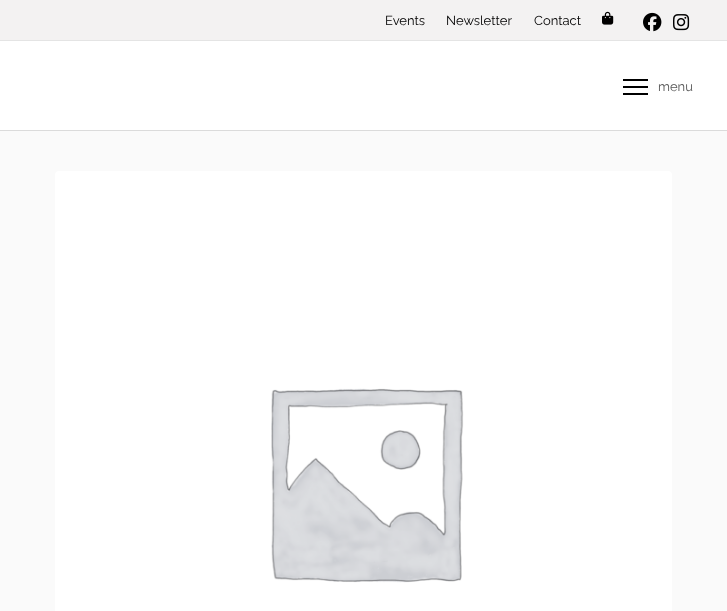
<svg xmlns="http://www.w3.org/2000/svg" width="727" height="611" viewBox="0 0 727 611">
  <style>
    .t1 { font: 13px Raleway; fill: #000; }
    .t2 { font: 13px Raleway; fill: #575757; }
  </style>
  <rect width="100%" height="100%" fill="#fafafa"/>
  <rect x="0" y="0" width="727" height="40" fill="#f3f2f2"/>
  <text x="385" y="25" class="t1">Events</text>
  <text x="446" y="25" class="t1">Newsletter</text>
  <text x="534" y="25" class="t1">Contact</text>
  <image x="602" y="11" width="12" height="14" href="images/1.png"/>
  <image x="643" y="12" width="19" height="20" href="images/2.png"/>
  <image x="673" y="14" width="17" height="17" href="images/3.png"/>
  <rect x="0" y="41" width="727" height="89" fill="#fff"/>
  <rect x="0" y="40" width="727" height="1" fill="#e4e4e4"/>
  <rect x="0" y="130" width="727" height="1" fill="#dbdbdb"/>
  <rect x="623" y="79" width="25" height="2" fill="#000"/>
  <rect x="623" y="86" width="25" height="2" fill="#000"/>
  <rect x="623" y="93" width="25" height="2" fill="#000"/>
  <text x="658" y="91" class="t2">menu</text>
  <rect x="55" y="171" width="617" height="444" rx="4" fill="#fff"/>
  <image x="271" y="388" width="193" height="195" href="images/4.png"/>
</svg>
